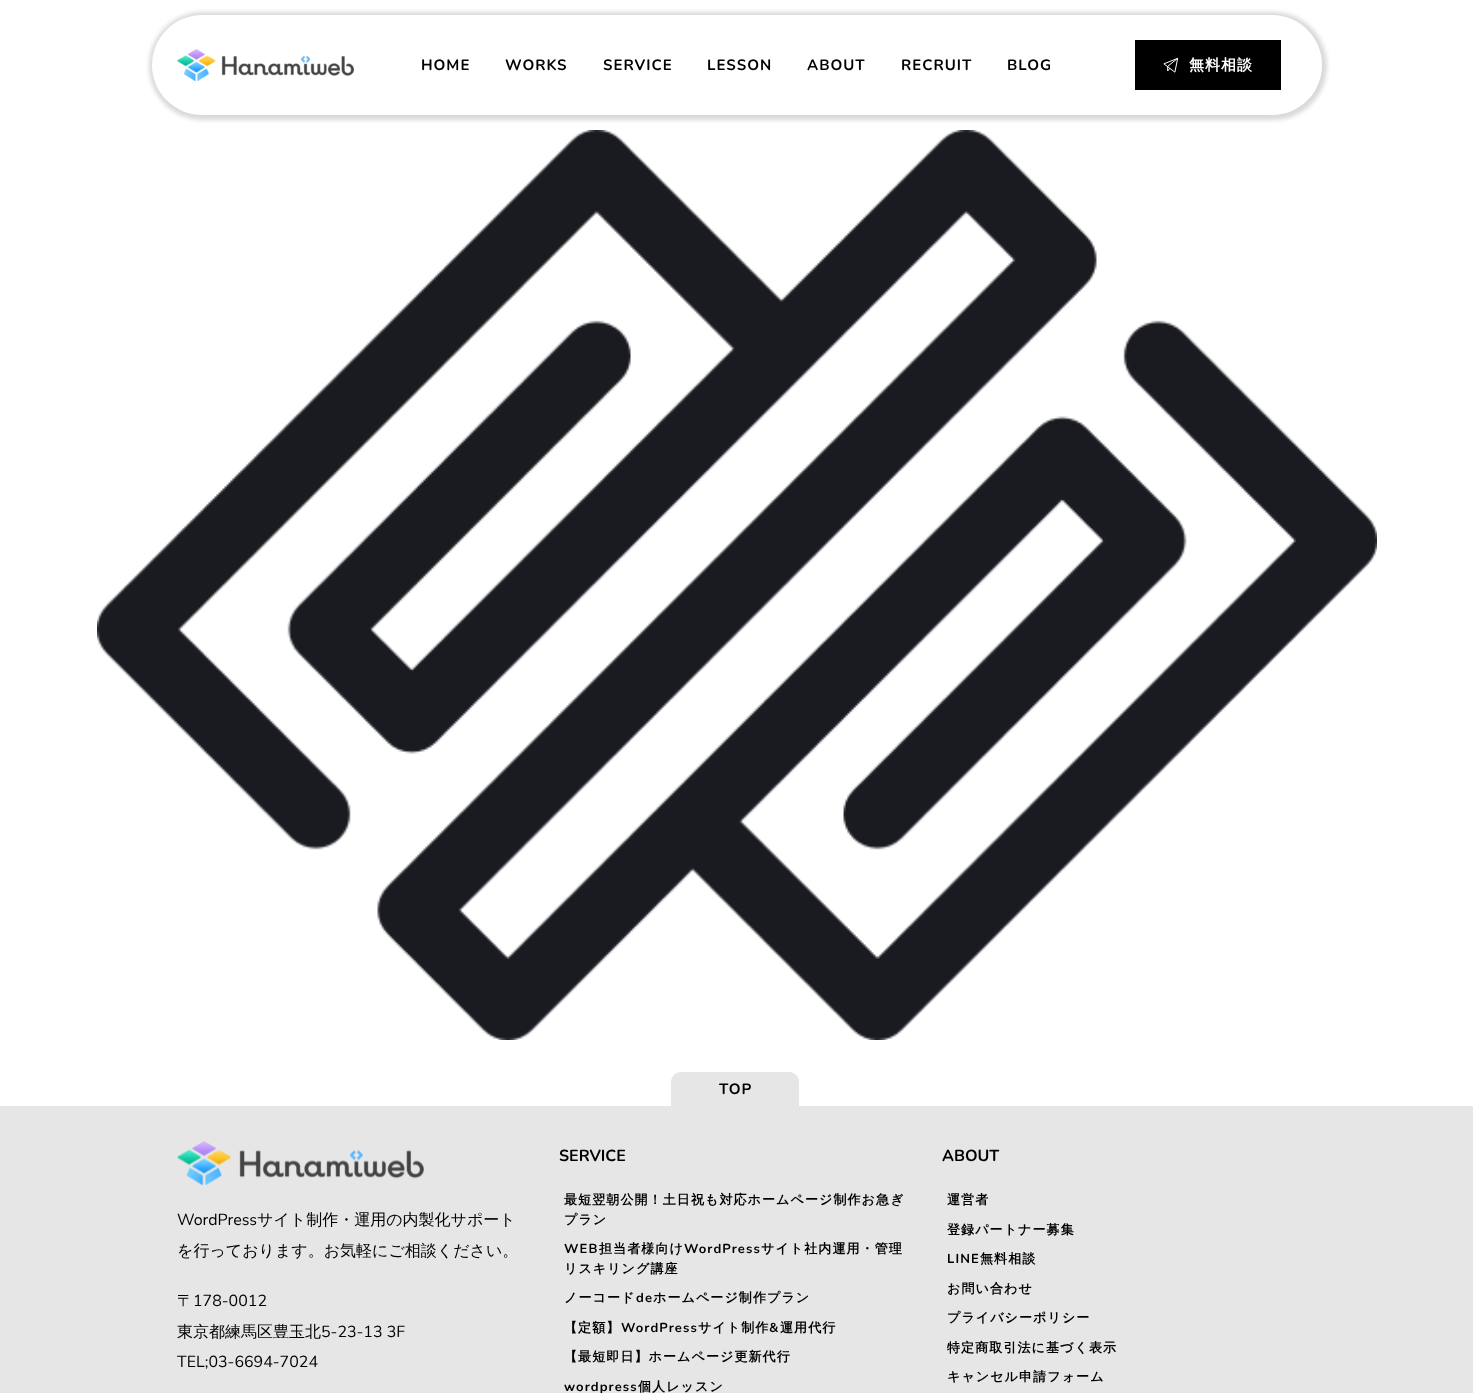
<svg xmlns="http://www.w3.org/2000/svg" width="1473" height="1393" viewBox="0 0 1473 1393">
  <style>
    .t1 { font: 200 15px Nunito; letter-spacing: 1px; fill: #000; }
    .t2 { font: bold 15px WenQuanYi Zen Hei; letter-spacing: 1px; fill: #fff; }
    .t3 { font: 200 16px 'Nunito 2'; fill: #000; }
    .t4 { font: 500 16px WenQuanYi Zen Hei; fill: #000; }
    .t5 { font: 200 16px Nunito; fill: #000; }
    .t6 { font: bold 13px WenQuanYi Zen Hei; letter-spacing: 1.1px; fill: #000; }
    .t7 { font: 200 13px Nunito; letter-spacing: 1.1px; fill: #000; }
  </style>
  <rect width="100%" height="100%" fill="#fff"/>
  <rect x="149" y="12" width="1178" height="108" rx="54" fill="#00000026" filter="blur(2px)"/>
  <rect x="152" y="15" width="1170" height="100" rx="50" fill="#fff"/>
  <image x="177" y="49" width="177" height="32" href="images/1.png"/>
  <text x="421" y="70" class="t1">HOME</text>
  <text x="505" y="70" class="t1">WORKS</text>
  <text x="603" y="70" class="t1">SERVICE</text>
  <text x="707" y="70" class="t1">LESSON</text>
  <text x="807" y="70" class="t1">ABOUT</text>
  <text x="901" y="70" class="t1">RECRUIT</text>
  <text x="1007" y="70" class="t1">BLOG</text>
  <rect x="1135" y="40" width="146" height="50" fill="#000"/>
  <image x="1163" y="57" width="16" height="16" href="images/2.png"/>
  <text x="1189" y="70" class="t2">無料相談</text>
  <image x="97" y="130" width="1280" height="910" href="images/3.png"/>
  <path d="M681 1072H789C794.5 1072 799 1076.5 799 1082V1106H671V1082C671 1076.5 675.5 1072 681 1072Z" fill="#e6e6e6"/>
  <text x="719" y="1094" class="t1">TOP</text>
  <rect x="0" y="1106" width="1473" height="287" fill="#e6e6e6"/>
  <image x="177" y="1141" width="247" height="44" href="images/4.png"/>
  <text x="177" y="1225" class="t3">WordPress</text>
  <text x="257" y="1225" class="t4">サイト制作・運用の内製化サポート</text>
  <text x="177" y="1256" class="t4">を行っております。お気軽にご相談ください。</text>
  <text x="177" y="1306" class="t4">〒</text>
  <text x="193" y="1306" class="t3">178-0012</text>
  <text x="177" y="1337" class="t4">東京都練馬区豊玉北</text>
  <text x="321" y="1337" class="t3">5-23-13 3F</text>
  <text x="177" y="1367" class="t3">TEL;03-6694-7024</text>
  <text x="559" y="1161" class="t5">SERVICE</text>
  <text x="564" y="1204" class="t6">最短翌朝公開！土日祝も対応ホームページ制作お急ぎ</text>
  <text x="564" y="1224" class="t6">プラン</text>
  <text x="564" y="1253" class="t7">WEB</text>
  <text x="599" y="1253" class="t6">担当者様向け</text>
  <text x="684" y="1253" class="t7">WordPress</text>
  <text x="761" y="1253" class="t6">サイト社内運用・管理</text>
  <text x="564" y="1273" class="t6">リスキリング講座</text>
  <text x="564" y="1302" class="t6">ノーコード</text>
  <text x="636" y="1302" class="t7">de</text>
  <text x="653" y="1302" class="t6">ホームページ制作プラン</text>
  <text x="564" y="1332" class="t6">【定額】</text>
  <text x="621" y="1332" class="t7">WordPress</text>
  <text x="698" y="1332" class="t6">サイト制作</text>
  <text x="769" y="1332" class="t7">&amp;</text>
  <text x="780" y="1332" class="t6">運用代行</text>
  <text x="564" y="1361" class="t6">【最短即日】ホームページ更新代行</text>
  <text x="564" y="1391" class="t7">wordpress</text>
  <text x="638" y="1391" class="t6">個人レッスン</text>
  <text x="942" y="1161" class="t5">ABOUT</text>
  <text x="947" y="1204" class="t6">運営者</text>
  <text x="947" y="1234" class="t6">登録パートナー募集</text>
  <text x="947" y="1263" class="t7">LINE</text>
  <text x="980" y="1263" class="t6">無料相談</text>
  <text x="947" y="1293" class="t6">お問い合わせ</text>
  <text x="947" y="1322" class="t6">プライバシーポリシー</text>
  <text x="947" y="1352" class="t6">特定商取引法に基づく表示</text>
  <text x="947" y="1381" class="t6">キャンセル申請フォーム</text>
</svg>
